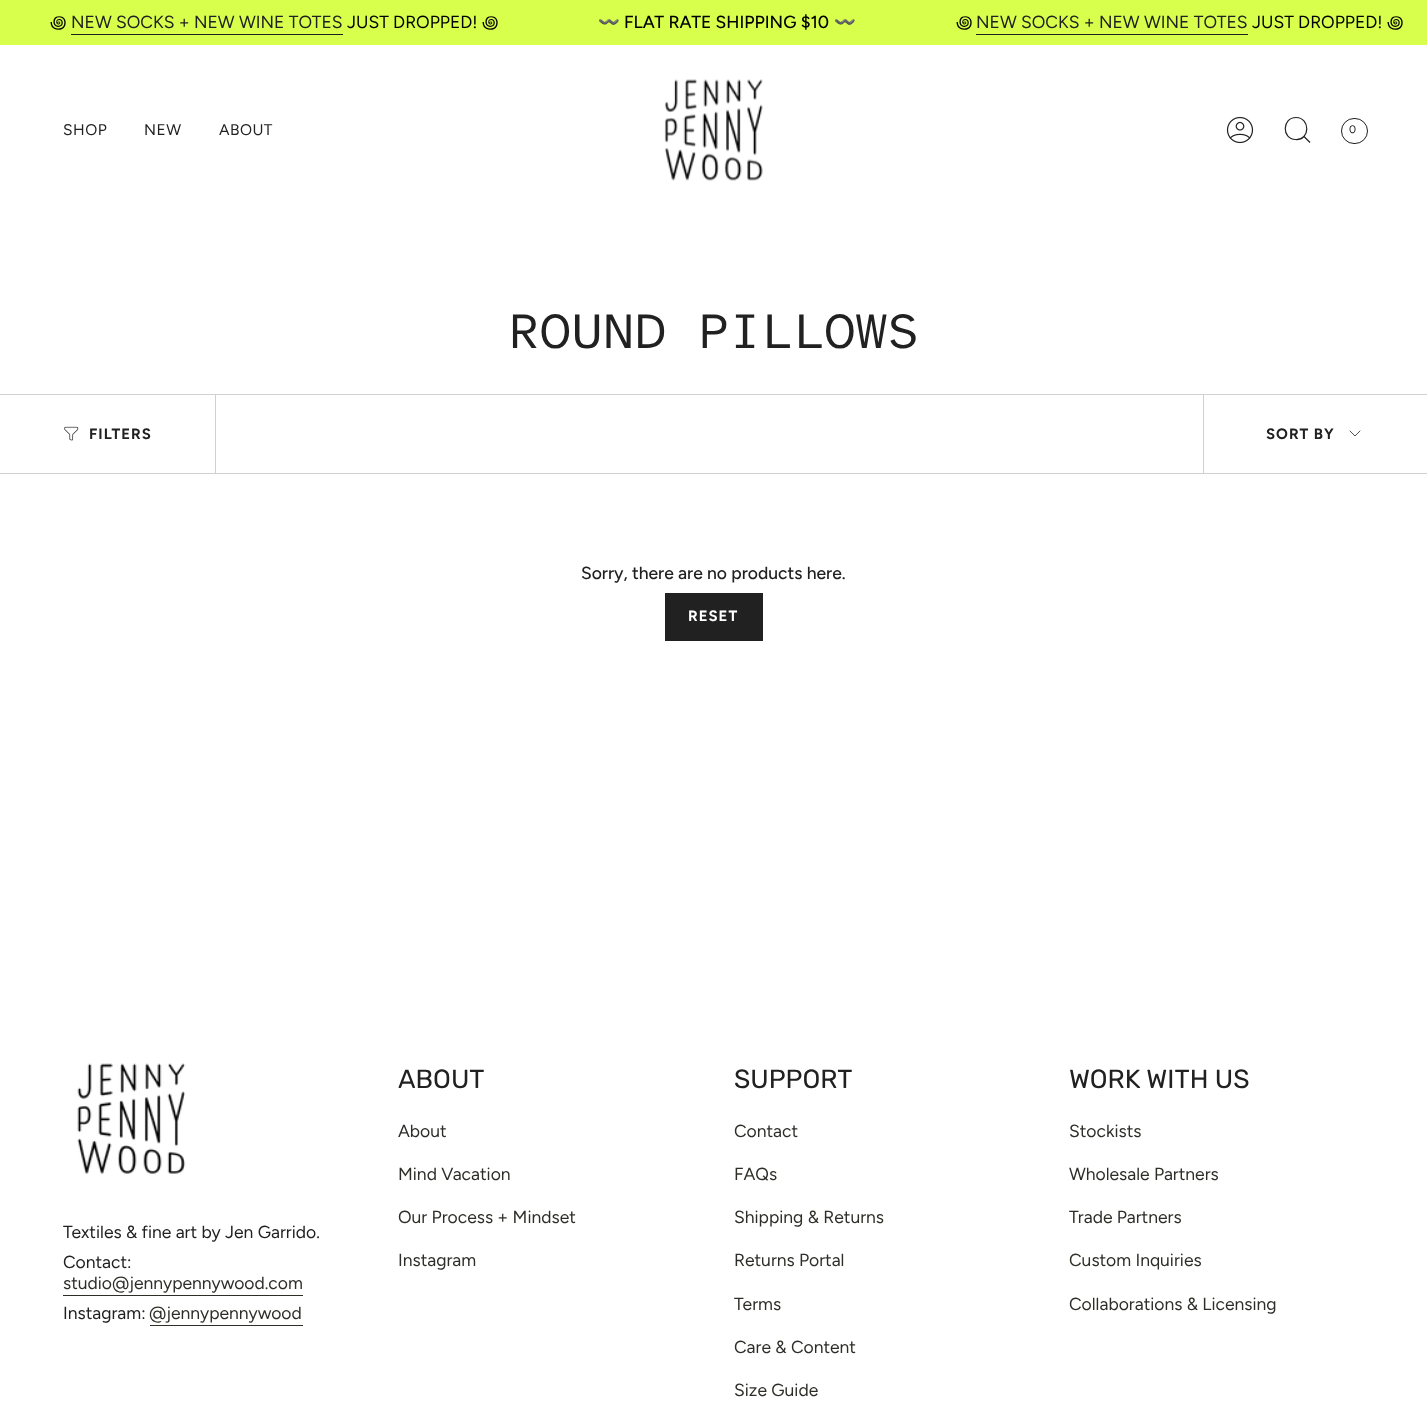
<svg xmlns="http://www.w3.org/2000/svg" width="1427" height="1411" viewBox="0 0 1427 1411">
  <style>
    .t1 { font: 17.5px Noto Sans Cham; fill: #000; }
    .t2 { font: 17.5px Figtree; fill: #212121; }
    .t3 { font: 17.5px Figtree; fill: #000; }
    .t4 { font: 17.5px Noto Color Emoji; fill: #000; }
    .t5 { font: 500 17.5px Figtree; fill: #000; }
    .t6 { font: 15.5px Figtree; letter-spacing: 0.5px; fill: #212121; }
    .t7 { font: 11px Figtree; letter-spacing: 0.5px; fill: #212121; }
    .t8 { font: 50px Atkinson Hyperlegible Mono; fill: #212121; }
    .t9 { font: bold 15px Figtree; letter-spacing: 1px; fill: #212121; }
    .t10 { font: 500 17.5px Figtree; fill: #212121; }
    .t11 { font: bold 15px Figtree; letter-spacing: 1px; fill: #fff; }
    .t12 { font: 17.5px Figtree; fill: #2e2e28; }
    .t13 { font: 26.25px Rubik; fill: #212121; }
  </style>
  <rect width="100%" height="100%" fill="#fff"/>
  <rect x="0" y="0" width="1427" height="45" fill="#d7ff4b"/>
  <text x="50" y="28" class="t1">꩜</text>
  <text x="71" y="28" class="t2">NEW SOCKS + NEW WINE TOTES</text>
  <rect x="71" y="34" width="272" height="1" fill="#212121"/>
  <text x="347" y="28" class="t3">JUST DROPPED!</text>
  <text x="482" y="28" class="t1">꩜</text>
  <text x="598" y="28" class="t4">〰️</text>
  <text x="624" y="28" class="t5">FLAT RATE SHIPPING $10</text>
  <text x="834" y="28" class="t4">〰️</text>
  <text x="956" y="28" class="t1">꩜</text>
  <text x="976" y="28" class="t2">NEW SOCKS + NEW WINE TOTES</text>
  <rect x="976" y="34" width="272" height="1" fill="#212121"/>
  <text x="1252" y="28" class="t3">JUST DROPPED!</text>
  <text x="1387" y="28" class="t1">꩜</text>
  <text x="63" y="135" class="t6">SHOP</text>
  <text x="144" y="135" class="t6">NEW</text>
  <text x="219" y="135" class="t6">ABOUT</text>
  <image x="664" y="79" width="99" height="102" href="images/1.png"/>
  <image x="1226" y="116" width="28" height="28" href="images/2.png"/>
  <path d="M1296 117.5C1310.5 117.5 1310.5 140.5 1295.5 139.5C1281.5 139 1282 117.5 1296 117.5ZM1304 136.5L1310 142.5" fill="none" stroke="#212121" stroke-width="1.2"/>
  <rect x="1341.5" y="118.5" width="26" height="25" rx="12.5" fill="none" stroke="#212121"/>
  <text x="1349" y="133" class="t7">0</text>
  <text x="508" y="348" class="t8">ROUND PILLOWS</text>
  <rect x="0" y="394" width="1427" height="1" fill="#d1d1d1"/>
  <rect x="0" y="473" width="1427" height="1" fill="#d1d1d1"/>
  <rect x="215" y="395" width="1" height="78" fill="#d1d1d1"/>
  <image x="64" y="426" width="15" height="15" href="images/3.png"/>
  <text x="89" y="439" class="t9">FILTERS</text>
  <rect x="1203" y="395" width="1" height="78" fill="#d1d1d1"/>
  <text x="1266" y="439" class="t9">SORT BY</text>
  <path d="M1350 431L1355 436L1360 431" fill="none" stroke="#212121" stroke-width="0.8" stroke-linecap="round" stroke-linejoin="round"/>
  <text x="581" y="579" class="t10">Sorry, there are no products here.</text>
  <rect x="665" y="593" width="98" height="48" fill="#212121"/>
  <text x="688" y="621" class="t11">RESET</text>
  <image x="77" y="1063" width="109" height="111" href="images/4.png"/>
  <text x="63" y="1238" class="t2">Textiles &amp; fine art by Jen Garrido.</text>
  <text x="63" y="1268" class="t2">Contact:</text>
  <text x="63" y="1289" class="t12">studio@jennypennywood.com</text>
  <rect x="63" y="1295" width="240" height="1" fill="#2e2e28"/>
  <text x="63" y="1319" class="t2">Instagram:</text>
  <text x="149" y="1319" class="t12">@jennypennywood</text>
  <rect x="150" y="1325" width="153" height="1" fill="#2e2e28"/>
  <text x="398" y="1088" class="t13">ABOUT</text>
  <text x="398" y="1137" class="t12">About</text>
  <text x="398" y="1180" class="t12">Mind Vacation</text>
  <text x="398" y="1223" class="t12">Our Process + Mindset</text>
  <text x="398" y="1266" class="t12">Instagram</text>
  <text x="734" y="1088" class="t13">SUPPORT</text>
  <text x="734" y="1137" class="t12">Contact</text>
  <text x="734" y="1180" class="t12">FAQs</text>
  <text x="734" y="1223" class="t12">Shipping &amp; Returns</text>
  <text x="734" y="1266" class="t12">Returns Portal</text>
  <text x="734" y="1310" class="t12">Terms</text>
  <text x="734" y="1353" class="t12">Care &amp; Content</text>
  <text x="734" y="1396" class="t12">Size Guide</text>
  <text x="1069" y="1088" class="t13">WORK WITH US</text>
  <text x="1069" y="1137" class="t12">Stockists</text>
  <text x="1069" y="1180" class="t12">Wholesale Partners</text>
  <text x="1069" y="1223" class="t12">Trade Partners</text>
  <text x="1069" y="1266" class="t12">Custom Inquiries</text>
  <text x="1069" y="1310" class="t12">Collaborations &amp; Licensing</text>
</svg>
